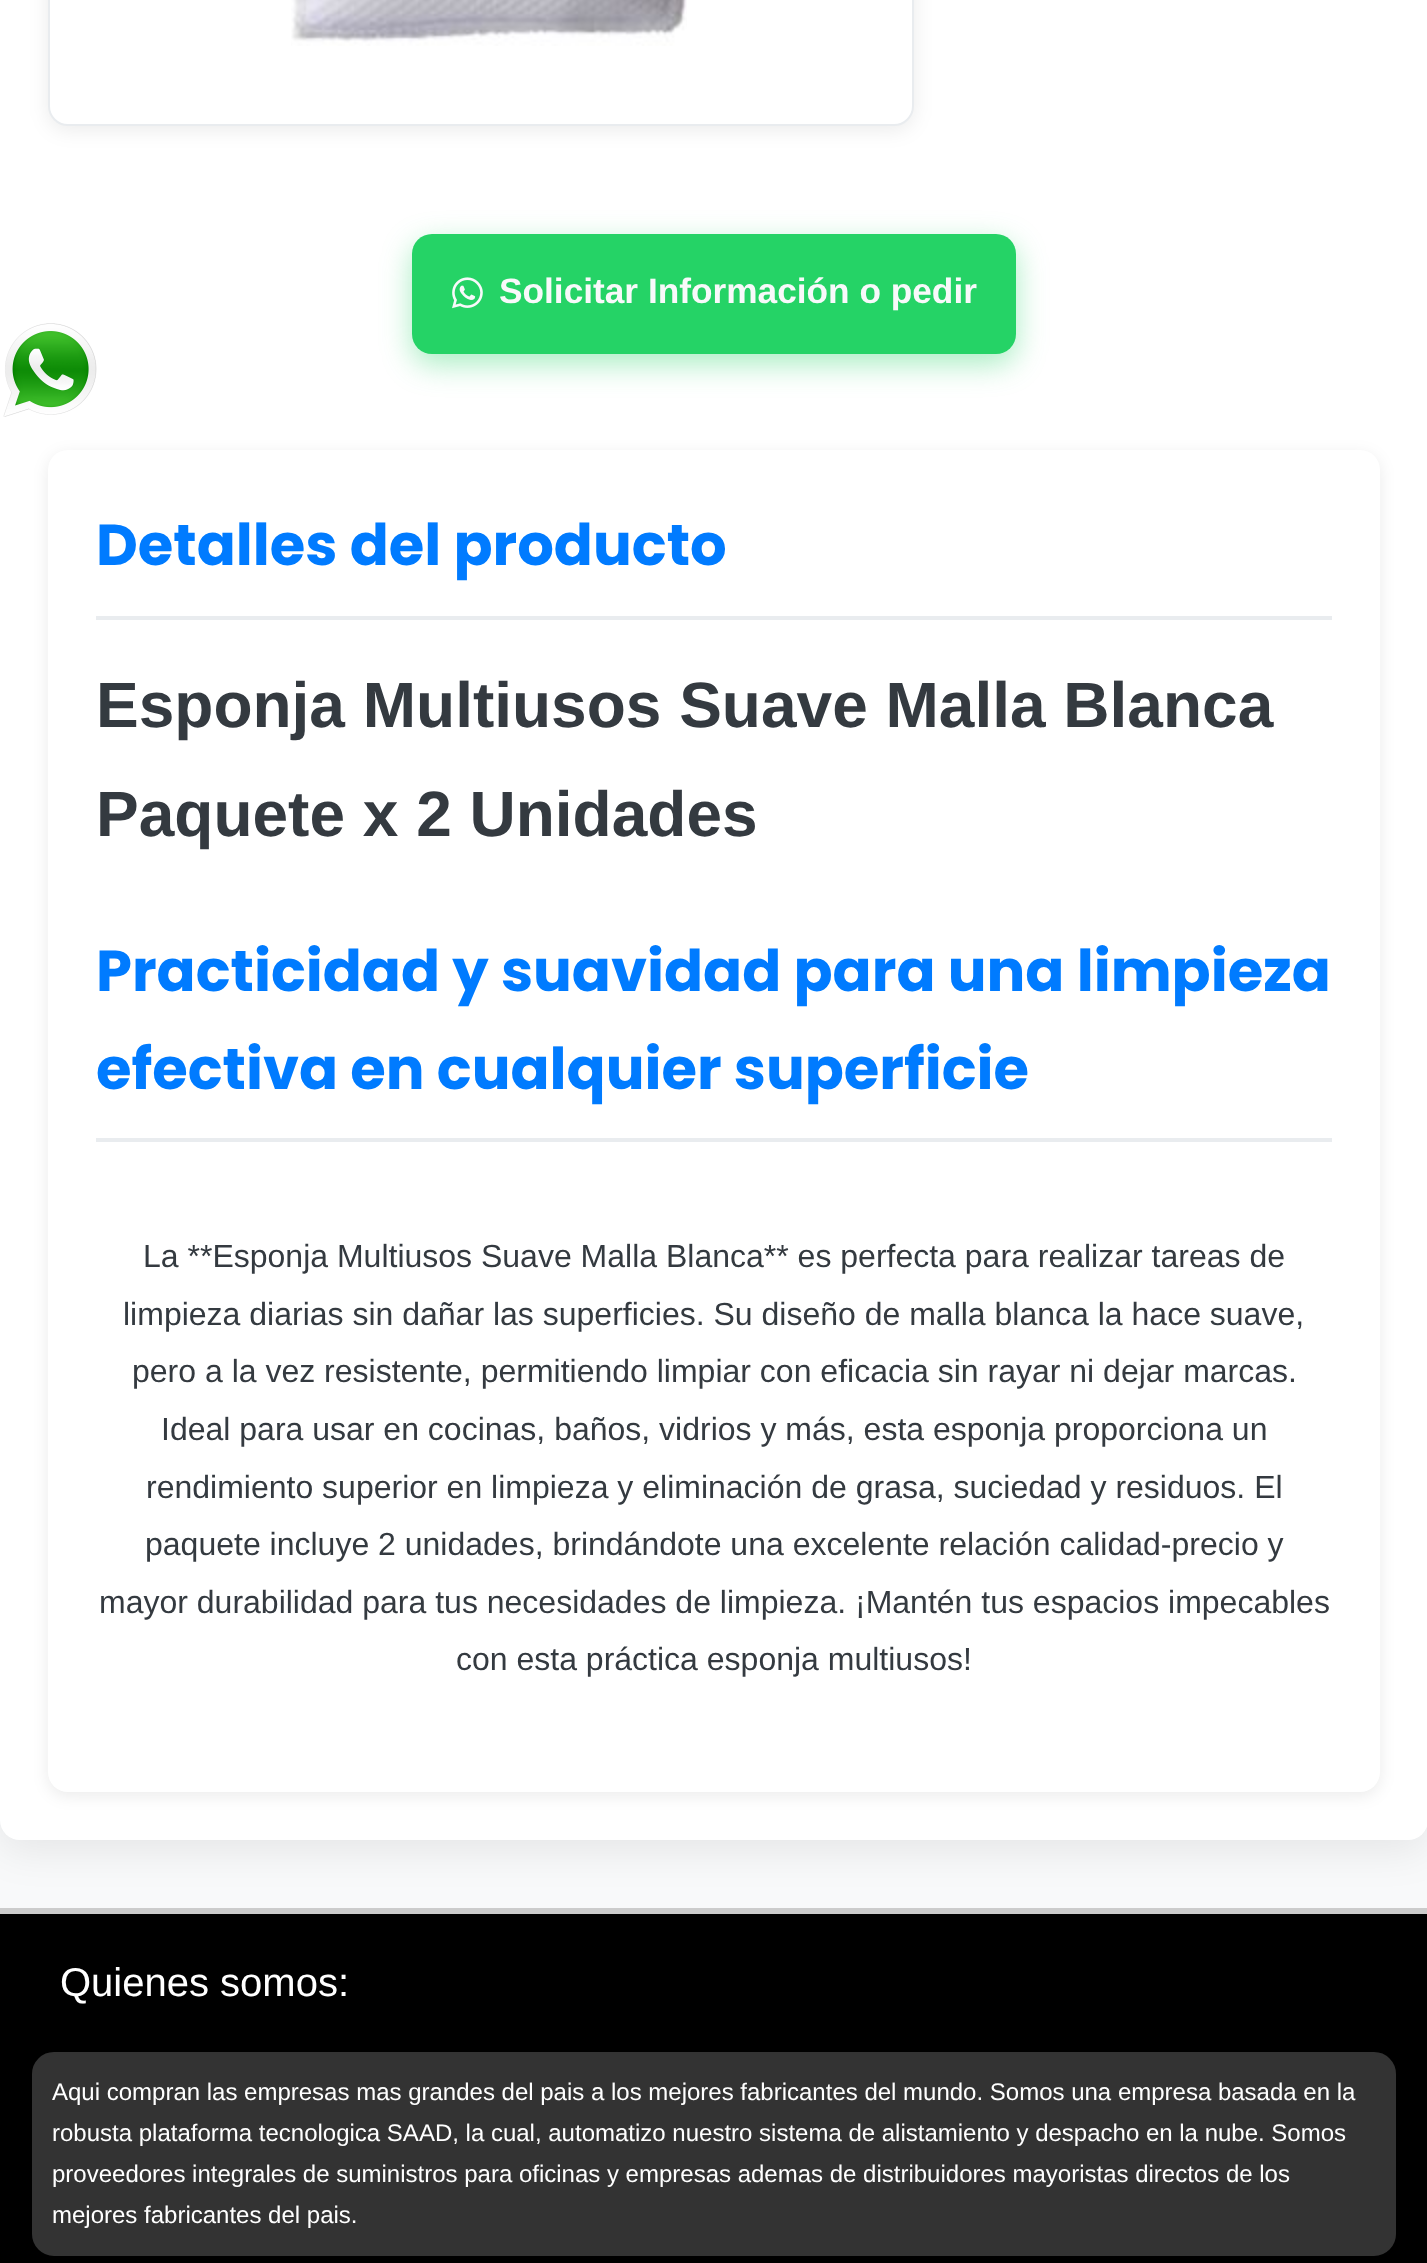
<svg xmlns="http://www.w3.org/2000/svg" width="1427" height="2263" viewBox="0 0 1427 2263">
  <style>
    .t1 { font: bold 35.25px Liberation Sans; fill: #f8f9fa; }
    .t2 { font: bold 57.6px Poppins; fill: #007bff; }
    .t3 { font: bold 64px Liberation Sans; fill: #343a40; }
    .t4 { font: 32px Liberation Sans; fill: #343a40; }
    .t5 { font: 40px Liberation Sans; fill: #fff; }
    .t6 { font: 24px Liberation Sans; fill: #fff; }
  </style>
  <rect width="100%" height="100%" fill="#f8f9fa"/>
  <rect x="0" y="-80" width="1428" height="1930" rx="20" fill="#00000014" filter="blur(20px)"/>
  <rect x="0" y="-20" width="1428" height="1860" rx="20" fill="#fff"/>
  <image x="3" y="323" width="94" height="94" href="images/1.png"/>
  <rect x="48" y="-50" width="866" height="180" rx="20" fill="#00000014" filter="blur(10px)"/>
  <rect x="49" y="-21" width="864" height="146" rx="19" fill="#fff" stroke="#e9ecef" stroke-width="2"/>
  <image x="291" y="0" width="396" height="46" href="images/2.png"/>
  <rect x="412" y="244" width="604" height="120" rx="20" fill="#25d36666" filter="blur(15px)"/>
  <rect x="412" y="234" width="604" height="120" rx="20" fill="#25d366"/>
  <image x="452" y="277" width="31" height="32" href="images/3.png"/>
  <text x="499" y="303" class="t1">Solicitar Información o pedir</text>
  <rect x="48" y="454" width="1332" height="1342" rx="20" fill="#00000014" filter="blur(8px)"/>
  <rect x="48" y="450" width="1332" height="1342" rx="20" fill="#fff"/>
  <rect x="96" y="616" width="1236" height="4" fill="#e9ecef"/>
  <text x="96" y="565" class="t2">Detalles del producto</text>
  <text x="96" y="727" class="t3">Esponja Multiusos Suave Malla Blanca</text>
  <text x="96" y="836" class="t3">Paquete x 2 Unidades</text>
  <rect x="96" y="1138" width="1236" height="4" fill="#e9ecef"/>
  <text x="96" y="991" class="t2">Practicidad y suavidad para una limpieza</text>
  <text x="96" y="1089" class="t2">efectiva en cualquier superficie</text>
  <text x="143" y="1267" class="t4">La **Esponja Multiusos Suave Malla Blanca** es perfecta para realizar tareas de</text>
  <text x="123" y="1325" class="t4">limpieza diarias sin dañar las superficies. Su diseño de malla blanca la hace suave,</text>
  <text x="132" y="1382" class="t4">pero a la vez resistente, permitiendo limpiar con eficacia sin rayar ni dejar marcas.</text>
  <text x="161" y="1440" class="t4">Ideal para usar en cocinas, baños, vidrios y más, esta esponja proporciona un</text>
  <text x="146" y="1498" class="t4">rendimiento superior en limpieza y eliminación de grasa, suciedad y residuos. El</text>
  <text x="145" y="1555" class="t4">paquete incluye 2 unidades, brindándote una excelente relación calidad-precio y</text>
  <text x="99" y="1613" class="t4">mayor durabilidad para tus necesidades de limpieza. ¡Mantén tus espacios impecables</text>
  <text x="456" y="1670" class="t4">con esta práctica esponja multiusos!</text>
  <rect x="0" y="1908" width="1427" height="6" fill="#ccc"/>
  <rect x="0" y="1914" width="1427" height="349" fill="#000"/>
  <text x="60" y="1996" class="t5">Quienes somos:</text>
  <rect x="31" y="2051" width="1366" height="206" rx="23" fill="#333" stroke="#000" stroke-width="2"/>
  <text x="52" y="2100" class="t6">Aqui compran las empresas mas grandes del pais a los mejores fabricantes del mundo. Somos una empresa basada en la</text>
  <text x="52" y="2141" class="t6">robusta plataforma tecnologica SAAD, la cual, automatizo nuestro sistema de alistamiento y despacho en la nube. Somos</text>
  <text x="52" y="2182" class="t6">proveedores integrales de suministros para oficinas y empresas ademas de distribuidores mayoristas directos de los</text>
  <text x="52" y="2223" class="t6">mejores fabricantes del pais.</text>
</svg>
